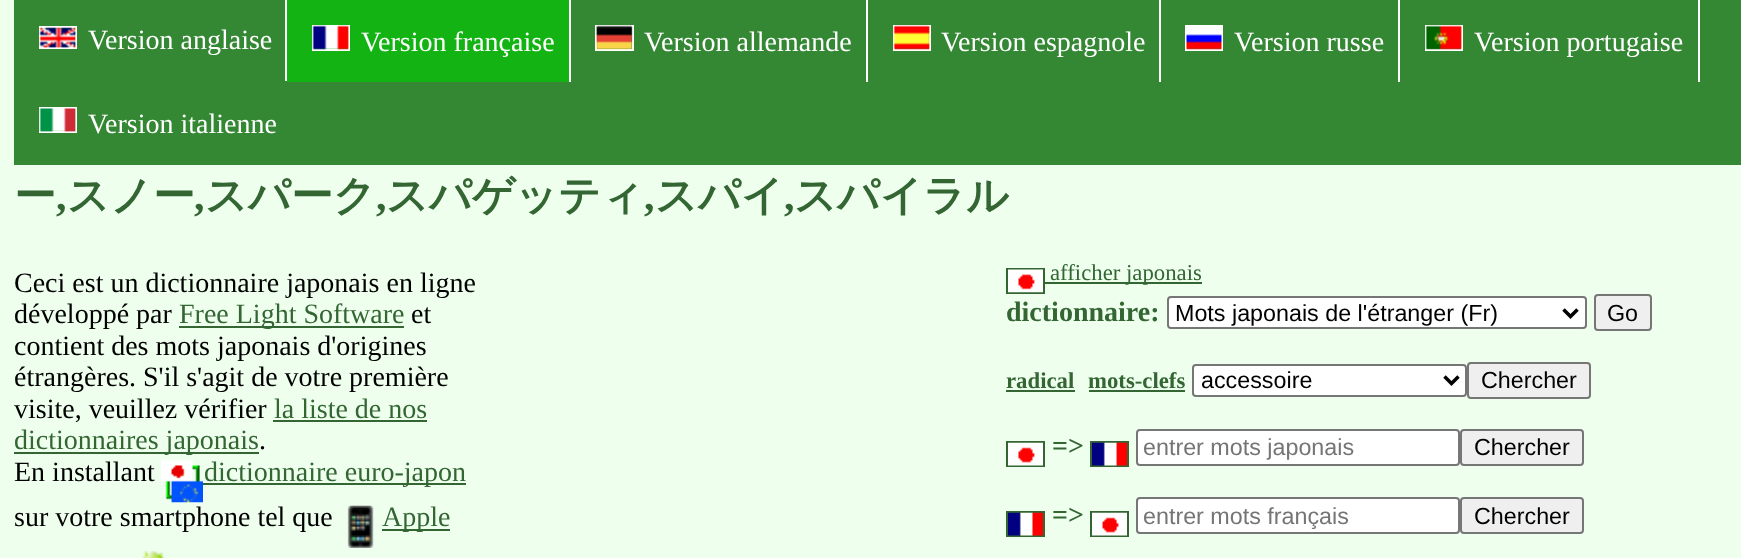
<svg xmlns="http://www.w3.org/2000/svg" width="1741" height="558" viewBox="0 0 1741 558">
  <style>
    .t1 { font: 28px Liberation Serif; fill: #fff; }
    .t2 { font: bold 42px WenQuanYi Zen Hei; fill: #363; }
    .t3 { font: bold 42px Liberation Serif; fill: #363; }
    .t4 { font: 28px Liberation Serif; fill: #000; }
    .t5 { font: 28px Liberation Serif; fill: #363; }
    .t6 { font: 22.75px Liberation Serif; fill: #363; }
    .t7 { font: bold 28px Liberation Serif; fill: #363; }
    .t8 { font: 23.3px Liberation Sans; fill: #000; }
    .t9 { font: bold 22.75px Liberation Serif; fill: #363; }
    .t10 { font: 23.3px Liberation Sans; fill: #757575; }
  </style>
  <rect width="100%" height="100%" fill="#efe"/>
  <rect x="14" y="0" width="1727" height="165" fill="#348834"/>
  <rect x="285" y="0" width="2" height="81" fill="#fff"/>
  <rect x="40" y="27" width="36" height="21" fill="none" stroke="#fff" stroke-width="2"/>
  <image x="39" y="27" width="37" height="21" href="images/1.png"/>
  <text x="88" y="49" class="t1">Version anglaise</text>
  <rect x="569" y="0" width="2" height="82" fill="#fff"/>
  <rect x="287" y="0" width="282" height="82" fill="#13b313"/>
  <rect x="313" y="26" width="36" height="24" fill="none" stroke="#fff" stroke-width="2"/>
  <image x="312" y="25" width="37" height="25" href="images/2.png"/>
  <text x="361" y="51" class="t1">Version française</text>
  <rect x="866" y="0" width="2" height="82" fill="#fff"/>
  <rect x="596" y="26" width="37" height="24" fill="none" stroke="#fff" stroke-width="2"/>
  <image x="596" y="25" width="37" height="25" href="images/3.png"/>
  <text x="644" y="51" class="t1">Version allemande</text>
  <rect x="1159" y="0" width="2" height="82" fill="#fff"/>
  <rect x="894" y="26" width="36" height="24" fill="none" stroke="#fff" stroke-width="2"/>
  <image x="893" y="25" width="37" height="25" href="images/4.png"/>
  <text x="941" y="51" class="t1">Version espagnole</text>
  <rect x="1398" y="0" width="2" height="82" fill="#fff"/>
  <rect x="1186" y="26" width="36" height="24" fill="none" stroke="#fff" stroke-width="2"/>
  <image x="1186" y="27" width="36" height="23" href="images/5.png"/>
  <text x="1234" y="51" class="t1">Version russe</text>
  <rect x="1698" y="0" width="2" height="82" fill="#fff"/>
  <rect x="1426" y="26" width="36" height="24" fill="none" stroke="#fff" stroke-width="2"/>
  <image x="1425" y="25" width="37" height="25" href="images/6.png"/>
  <text x="1474" y="51" class="t1">Version portugaise</text>
  <rect x="40" y="108" width="36" height="24" fill="none" stroke="#fff" stroke-width="2"/>
  <image x="39" y="108" width="37" height="24" href="images/7.png"/>
  <text x="88" y="133" class="t1">Version italienne</text>
  <text x="14" y="210" class="t2">ー</text>
  <text x="67" y="210" class="t2">スノー</text>
  <text x="205" y="210" class="t2">スパーク</text>
  <text x="386" y="210" class="t2">スパゲッティ</text>
  <text x="655" y="210" class="t2">スパイ</text>
  <text x="794" y="210" class="t2">スパイラル</text>
  <text x="56" y="210" class="t3">,</text>
  <text x="194" y="210" class="t3">,</text>
  <text x="376" y="210" class="t3">,</text>
  <text x="644" y="210" class="t3">,</text>
  <text x="784" y="210" class="t3">,</text>
  <text x="14" y="292" class="t4">Ceci est un dictionnaire japonais en ligne</text>
  <text x="14" y="323" class="t4">développé par</text>
  <rect x="179" y="326" width="225" height="2" fill="#363"/>
  <text x="179" y="323" class="t5">Free Light Software</text>
  <text x="411" y="323" class="t4">et</text>
  <text x="14" y="355" class="t4">contient des mots japonais d'origines</text>
  <text x="14" y="386" class="t4">étrangères. S'il s'agit de votre première</text>
  <text x="14" y="418" class="t4">visite, veuillez vérifier</text>
  <text x="274" y="418" class="t5">la liste de nos</text>
  <rect x="273" y="420" width="154" height="2" fill="#363"/>
  <rect x="14" y="452" width="245" height="2" fill="#363"/>
  <text x="14" y="449" class="t5">dictionnaires japonais</text>
  <text x="259" y="449" class="t4">.</text>
  <text x="14" y="481" class="t4">En installant</text>
  <image x="161" y="460" width="42" height="43" href="images/8.png"/>
  <rect x="203" y="483" width="263" height="2" fill="#363"/>
  <text x="204" y="481" class="t5">dictionnaire euro-japon</text>
  <text x="14" y="526" class="t4">sur votre smartphone tel que</text>
  <image x="347" y="505" width="27" height="43" href="images/9.png"/>
  <rect x="382" y="529" width="68" height="2" fill="#363"/>
  <text x="382" y="526" class="t5">Apple</text>
  <image x="141" y="551" width="24" height="7" href="images/10.png"/>
  <rect x="1007" y="269" width="37" height="24" fill="none" stroke="#363" stroke-width="2"/>
  <image x="1008" y="269" width="35" height="24" href="images/11.png"/>
  <rect x="1045" y="282" width="157" height="2" fill="#363"/>
  <text x="1050" y="280" class="t6">afficher japonais</text>
  <text x="1006" y="321" class="t7">dictionnaire:</text>
  <rect x="1168" y="297" width="418" height="31" rx="3" fill="#fff" stroke="#767676" stroke-width="2"/>
  <path d="M1563.5 309.5L1570.5 316.5L1577.5 309.5" fill="none" stroke="#000" stroke-width="3.5"/>
  <text x="1175" y="321" class="t8">Mots japonais de l'étranger (Fr)</text>
  <rect x="1595" y="295" width="56" height="35" rx="3" fill="#efefef" stroke="#767676" stroke-width="2"/>
  <text x="1607" y="321" class="t8">Go</text>
  <text x="1006" y="388" class="t9">radical</text>
  <rect x="1006" y="390" width="69" height="2" fill="#363"/>
  <text x="1088" y="388" class="t9">mots-clefs</text>
  <rect x="1089" y="390" width="96" height="2" fill="#363"/>
  <rect x="1193" y="365" width="273" height="31" rx="3" fill="#fff" stroke="#767676" stroke-width="2"/>
  <path d="M1444.5 376.5L1451.5 383.5L1458.5 376.5" fill="none" stroke="#000" stroke-width="3.5"/>
  <text x="1201" y="388" class="t8">accessoire</text>
  <rect x="1468" y="363" width="122" height="35" rx="3" fill="#efefef" stroke="#767676" stroke-width="2"/>
  <text x="1481" y="388" class="t8">Chercher</text>
  <rect x="1007" y="442" width="37" height="24" fill="none" stroke="#363" stroke-width="2"/>
  <image x="1008" y="442" width="35" height="24" href="images/12.png"/>
  <text x="1052" y="455" class="t7">=&gt;</text>
  <rect x="1091" y="442" width="37" height="24" fill="none" stroke="#363" stroke-width="2"/>
  <image x="1092" y="442" width="35" height="24" href="images/13.png"/>
  <rect x="1137" y="430" width="322" height="35" rx="3" fill="#fff" stroke="#767676" stroke-width="2"/>
  <text x="1143" y="455" class="t10">entrer mots japonais</text>
  <rect x="1461" y="430" width="122" height="35" rx="3" fill="#efefef" stroke="#767676" stroke-width="2"/>
  <text x="1474" y="455" class="t8">Chercher</text>
  <rect x="1007" y="512" width="37" height="24" fill="none" stroke="#363" stroke-width="2"/>
  <image x="1008" y="512" width="35" height="24" href="images/14.png"/>
  <text x="1052" y="524" class="t7">=&gt;</text>
  <rect x="1091" y="512" width="37" height="24" fill="none" stroke="#363" stroke-width="2"/>
  <image x="1092" y="512" width="35" height="24" href="images/15.png"/>
  <rect x="1137" y="498" width="322" height="35" rx="3" fill="#fff" stroke="#767676" stroke-width="2"/>
  <text x="1143" y="524" class="t10">entrer mots français</text>
  <rect x="1461" y="498" width="122" height="35" rx="3" fill="#efefef" stroke="#767676" stroke-width="2"/>
  <text x="1474" y="524" class="t8">Chercher</text>
</svg>
